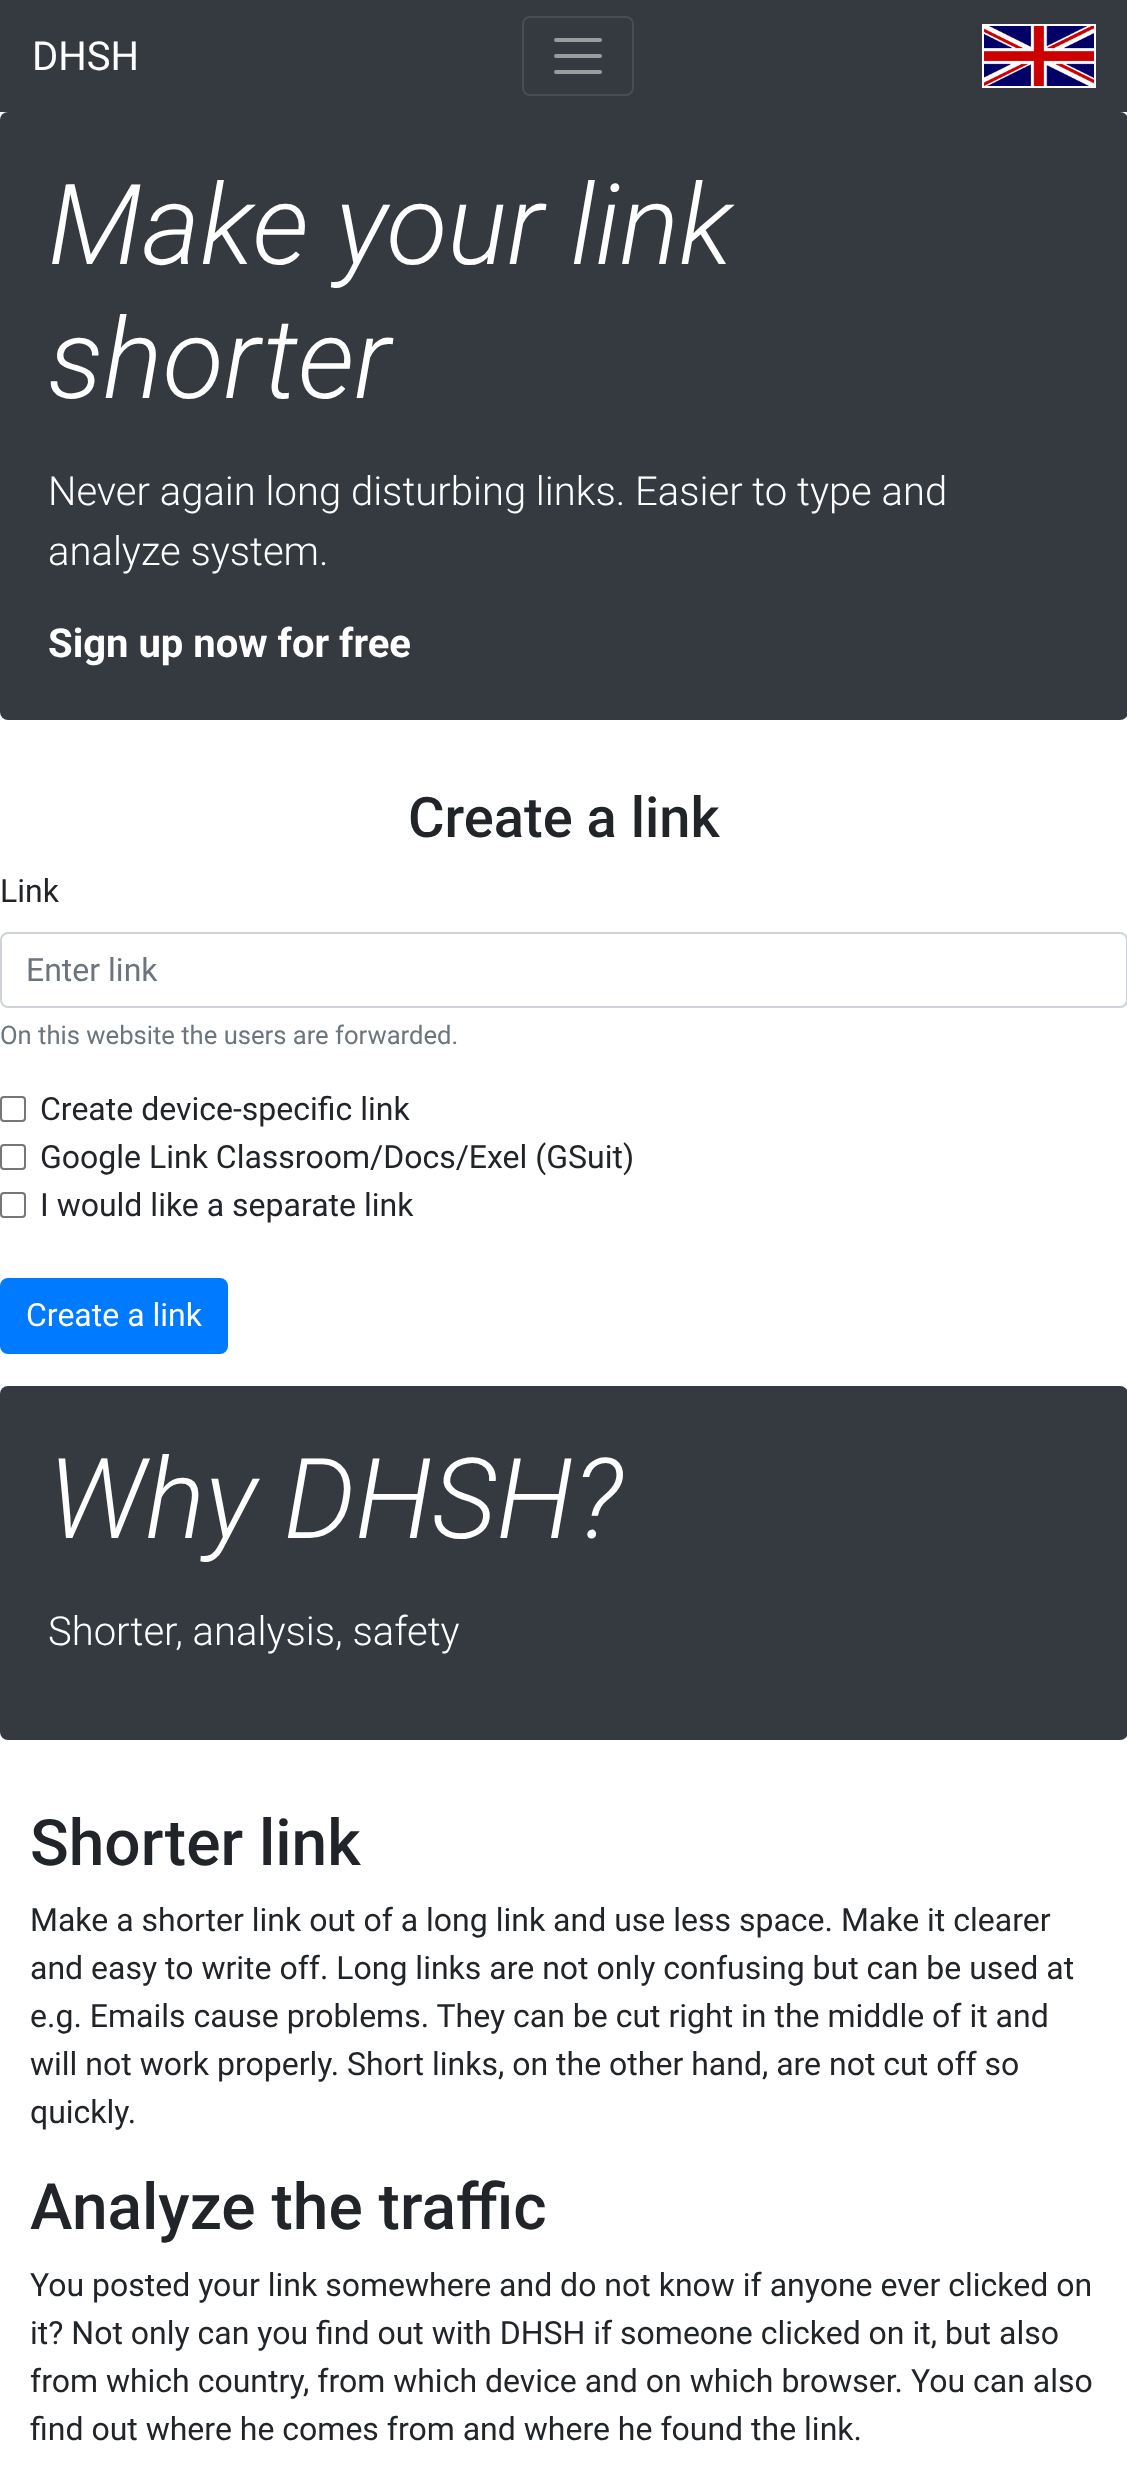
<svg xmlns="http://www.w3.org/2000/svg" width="1127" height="2478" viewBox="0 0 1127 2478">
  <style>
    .t1 { font: 40px Roboto; fill: #fff; }
    .t2 { font: italic 300 112px Roboto; fill: #fff; }
    .t3 { font: 300 40px Roboto; fill: #fff; }
    .t4 { font: bold 40px Roboto; fill: #fff; }
    .t5 { font: 500 56px Roboto; fill: #212529; }
    .t6 { font: 32px Roboto; fill: #212529; }
    .t7 { font: 32px Roboto; fill: #6c757d; }
    .t8 { font: 25.6px Roboto; fill: #6c757d; }
    .t9 { font: 32px Roboto; fill: #fff; }
    .t10 { font: 500 64px Roboto; fill: #212529; }
  </style>
  <rect width="100%" height="100%" fill="#fff"/>
  <rect x="0" y="0" width="1127" height="112" fill="#343a40"/>
  <text x="32" y="70" class="t1">DHSH</text>
  <rect x="523" y="17" width="110" height="78" rx="7" fill="none" stroke="#484e53" stroke-width="2"/>
  <path d="M556 40H600M556 56H600M556 72H600" fill="none" stroke="#9a9da0" stroke-width="4" stroke-linecap="round"/>
  <rect x="983" y="25" width="112" height="62" fill="none" stroke="#fff" stroke-width="2"/>
  <image x="984" y="26" width="110" height="60" href="images/1.png"/>
  <rect x="0" y="112" width="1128" height="608" rx="8" fill="#343a40"/>
  <text x="48" y="264" class="t2">Make your link</text>
  <text x="48" y="398" class="t2">shorter</text>
  <text x="48" y="505" class="t3">Never again long disturbing links. Easier to type and</text>
  <text x="48" y="565" class="t3">analyze system.</text>
  <text x="48" y="657" class="t4">Sign up now for free</text>
  <text x="408" y="837" class="t5">Create a link</text>
  <text x="0" y="902" class="t6">Link</text>
  <rect x="1" y="933" width="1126" height="74" rx="7" fill="none" stroke="#ced4da" stroke-width="2"/>
  <text x="26" y="981" class="t7">Enter link</text>
  <text x="0" y="1044" class="t8">On this website the users are forwarded.</text>
  <rect x="1" y="1097" width="24" height="24" rx="3" fill="none" stroke="#767676" stroke-width="2"/>
  <text x="40" y="1120" class="t6">Create device-specific link</text>
  <rect x="1" y="1145" width="24" height="24" rx="3" fill="none" stroke="#767676" stroke-width="2"/>
  <text x="40" y="1168" class="t6">Google Link Classroom/Docs/Exel (GSuit)</text>
  <rect x="1" y="1193" width="24" height="24" rx="3" fill="none" stroke="#767676" stroke-width="2"/>
  <text x="40" y="1216" class="t6">I would like a separate link</text>
  <rect x="1" y="1279" width="226" height="74" rx="7" fill="#007bff" stroke="#007bff" stroke-width="2"/>
  <text x="26" y="1326" class="t9">Create a link</text>
  <rect x="0" y="1386" width="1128" height="354" rx="8" fill="#343a40"/>
  <text x="48" y="1538" class="t2">Why DHSH?</text>
  <text x="48" y="1645" class="t3">Shorter, analysis, safety</text>
  <text x="30" y="1865" class="t10">Shorter link</text>
  <text x="30" y="1931" class="t6">Make a shorter link out of a long link and use less space. Make it clearer</text>
  <text x="30" y="1979" class="t6">and easy to write off. Long links are not only confusing but can be used at</text>
  <text x="30" y="2027" class="t6">e.g. Emails cause problems. They can be cut right in the middle of it and</text>
  <text x="30" y="2075" class="t6">will not work properly. Short links, on the other hand, are not cut off so</text>
  <text x="30" y="2123" class="t6">quickly.</text>
  <text x="30" y="2229" class="t10">Analyze the traffic</text>
  <text x="30" y="2296" class="t6">You posted your link somewhere and do not know if anyone ever clicked on</text>
  <text x="30" y="2344" class="t6">it? Not only can you find out with DHSH if someone clicked on it, but also</text>
  <text x="30" y="2392" class="t6">from which country, from which device and on which browser. You can also</text>
  <text x="30" y="2440" class="t6">find out where he comes from and where he found the link.</text>
</svg>
